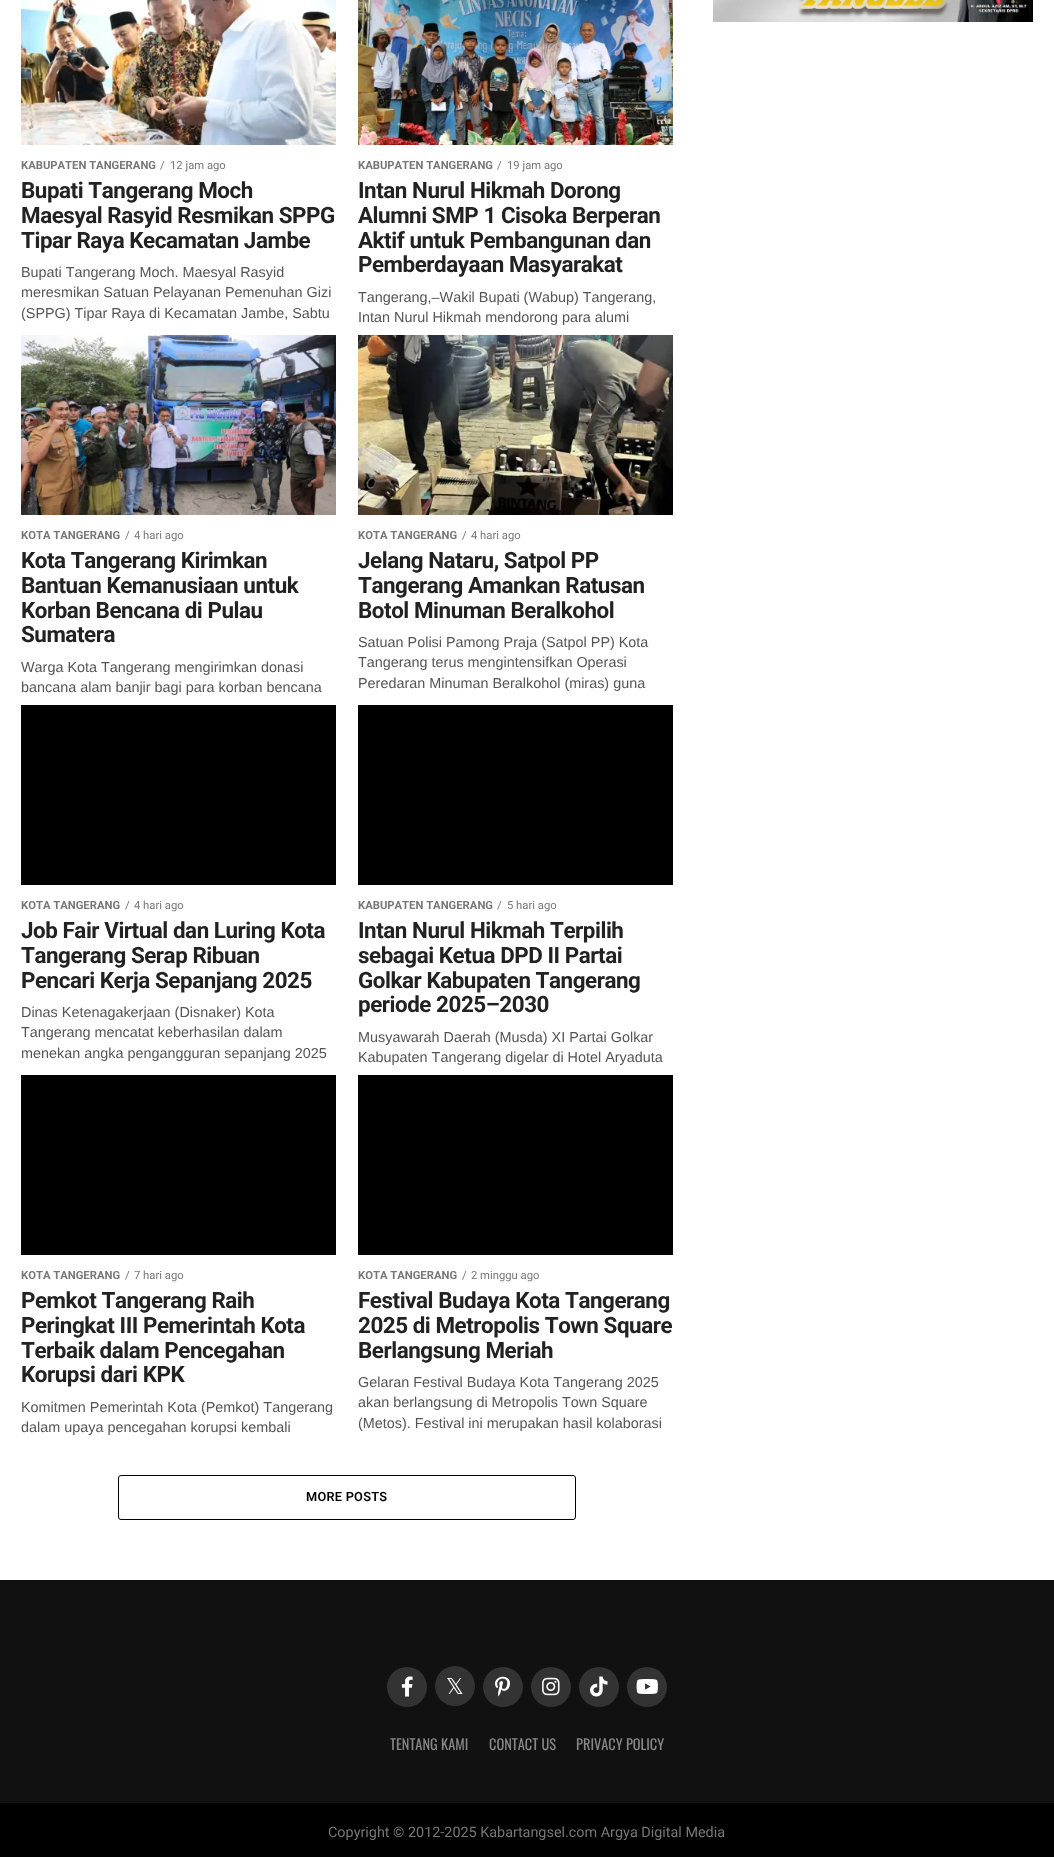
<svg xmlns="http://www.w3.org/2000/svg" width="1054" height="1857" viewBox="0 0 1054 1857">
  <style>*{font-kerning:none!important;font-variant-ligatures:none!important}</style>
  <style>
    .t1 { font: bold 11.25px Roboto; fill: #777; }
    .t2 { font: 11.25px Roboto; fill: #777; }
    .t3 { font: bold 22.4px Roboto; letter-spacing: -0.45px; fill: #222; }
    .t4 { font: 14.4px Liberation Sans; fill: #555; }
    .t5 { font: 600 12.75px Roboto; letter-spacing: 0.25px; fill: #000; }
    .t6 { font: 22px DejaVu Sans; fill: #fff; }
    .t7 { font: 14.4px Oswald; fill: #888; }
    .t8 { font: 14.4px Roboto; fill: #777; }
  </style>
  <rect width="100%" height="100%" fill="#fff"/>
  <image x="713" y="0" width="320" height="22" href="images/1.png"/>
  <image x="21" y="0" width="315" height="145" href="images/2.png"/>
  <text x="21" y="169" class="t1">KABUPATEN TANGERANG</text>
  <text x="160" y="169" class="t2">/</text>
  <text x="170" y="169" class="t2">12 jam ago</text>
  <text x="21" y="198" class="t3">Bupati Tangerang Moch</text>
  <text x="21" y="223" class="t3">Maesyal Rasyid Resmikan SPPG</text>
  <text x="21" y="248" class="t3">Tipar Raya Kecamatan Jambe</text>
  <text x="21" y="277" class="t4">Bupati Tangerang Moch. Maesyal Rasyid</text>
  <text x="21" y="297" class="t4">meresmikan Satuan Pelayanan Pemenuhan Gizi</text>
  <text x="21" y="318" class="t4">(SPPG) Tipar Raya di Kecamatan Jambe, Sabtu</text>
  <image x="358" y="0" width="315" height="145" href="images/3.png"/>
  <text x="358" y="169" class="t1">KABUPATEN TANGERANG</text>
  <text x="497" y="169" class="t2">/</text>
  <text x="507" y="169" class="t2">19 jam ago</text>
  <text x="358" y="198" class="t3">Intan Nurul Hikmah Dorong</text>
  <text x="358" y="223" class="t3">Alumni SMP 1 Cisoka Berperan</text>
  <text x="358" y="248" class="t3">Aktif untuk Pembangunan dan</text>
  <text x="358" y="272" class="t3">Pemberdayaan Masyarakat</text>
  <text x="358" y="302" class="t4">Tangerang,–Wakil Bupati (Wabup) Tangerang,</text>
  <text x="358" y="322" class="t4">Intan Nurul Hikmah mendorong para alumi</text>
  <image x="21" y="335" width="315" height="180" href="images/4.png"/>
  <text x="21" y="539" class="t1">KOTA TANGERANG</text>
  <text x="125" y="539" class="t2">/</text>
  <text x="134" y="539" class="t2">4 hari ago</text>
  <text x="21" y="568" class="t3">Kota Tangerang Kirimkan</text>
  <text x="21" y="593" class="t3">Bantuan Kemanusiaan untuk</text>
  <text x="21" y="618" class="t3">Korban Bencana di Pulau</text>
  <text x="21" y="642" class="t3">Sumatera</text>
  <text x="21" y="672" class="t4">Warga Kota Tangerang mengirimkan donasi</text>
  <text x="21" y="692" class="t4">bancana alam banjir bagi para korban bencana</text>
  <image x="358" y="335" width="315" height="180" href="images/5.png"/>
  <text x="358" y="539" class="t1">KOTA TANGERANG</text>
  <text x="462" y="539" class="t2">/</text>
  <text x="471" y="539" class="t2">4 hari ago</text>
  <text x="358" y="568" class="t3">Jelang Nataru, Satpol PP</text>
  <text x="358" y="593" class="t3">Tangerang Amankan Ratusan</text>
  <text x="358" y="618" class="t3">Botol Minuman Beralkohol</text>
  <text x="358" y="647" class="t4">Satuan Polisi Pamong Praja (Satpol PP) Kota</text>
  <text x="358" y="667" class="t4">Tangerang terus mengintensifkan Operasi</text>
  <text x="358" y="688" class="t4">Peredaran Minuman Beralkohol (miras) guna</text>
  <rect x="21" y="705" width="315" height="180" fill="#000"/>
  <text x="21" y="909" class="t1">KOTA TANGERANG</text>
  <text x="125" y="909" class="t2">/</text>
  <text x="134" y="909" class="t2">4 hari ago</text>
  <text x="21" y="938" class="t3">Job Fair Virtual dan Luring Kota</text>
  <text x="21" y="963" class="t3">Tangerang Serap Ribuan</text>
  <text x="21" y="988" class="t3">Pencari Kerja Sepanjang 2025</text>
  <text x="21" y="1017" class="t4">Dinas Ketenagakerjaan (Disnaker) Kota</text>
  <text x="21" y="1037" class="t4">Tangerang mencatat keberhasilan dalam</text>
  <text x="21" y="1058" class="t4">menekan angka pengangguran sepanjang 2025</text>
  <rect x="358" y="705" width="315" height="180" fill="#000"/>
  <text x="358" y="909" class="t1">KABUPATEN TANGERANG</text>
  <text x="497" y="909" class="t2">/</text>
  <text x="507" y="909" class="t2">5 hari ago</text>
  <text x="358" y="938" class="t3">Intan Nurul Hikmah Terpilih</text>
  <text x="358" y="963" class="t3">sebagai Ketua DPD II Partai</text>
  <text x="358" y="988" class="t3">Golkar Kabupaten Tangerang</text>
  <text x="358" y="1012" class="t3">periode 2025–2030</text>
  <text x="358" y="1042" class="t4">Musyawarah Daerah (Musda) XI Partai Golkar</text>
  <text x="358" y="1062" class="t4">Kabupaten Tangerang digelar di Hotel Aryaduta</text>
  <rect x="21" y="1075" width="315" height="180" fill="#000"/>
  <text x="21" y="1279" class="t1">KOTA TANGERANG</text>
  <text x="125" y="1279" class="t2">/</text>
  <text x="134" y="1279" class="t2">7 hari ago</text>
  <text x="21" y="1308" class="t3">Pemkot Tangerang Raih</text>
  <text x="21" y="1333" class="t3">Peringkat III Pemerintah Kota</text>
  <text x="21" y="1358" class="t3">Terbaik dalam Pencegahan</text>
  <text x="21" y="1382" class="t3">Korupsi dari KPK</text>
  <text x="21" y="1412" class="t4">Komitmen Pemerintah Kota (Pemkot) Tangerang</text>
  <text x="21" y="1432" class="t4">dalam upaya pencegahan korupsi kembali</text>
  <rect x="358" y="1075" width="315" height="180" fill="#000"/>
  <text x="358" y="1279" class="t1">KOTA TANGERANG</text>
  <text x="462" y="1279" class="t2">/</text>
  <text x="471" y="1279" class="t2">2 minggu ago</text>
  <text x="358" y="1308" class="t3">Festival Budaya Kota Tangerang</text>
  <text x="358" y="1333" class="t3">2025 di Metropolis Town Square</text>
  <text x="358" y="1358" class="t3">Berlangsung Meriah</text>
  <text x="358" y="1387" class="t4">Gelaran Festival Budaya Kota Tangerang 2025</text>
  <text x="358" y="1407" class="t4">akan berlangsung di Metropolis Town Square</text>
  <text x="358" y="1428" class="t4">(Metos). Festival ini merupakan hasil kolaborasi</text>
  <rect x="118.5" y="1475.5" width="457" height="44" rx="2.5" fill="none" stroke="#000"/>
  <text x="306" y="1501" class="t5">MORE POSTS</text>
  <rect x="0" y="1580" width="1054" height="223" fill="#111"/>
  <circle cx="407" cy="1687" r="20" fill="#333"/>
  <image x="401" y="1676" width="12" height="21" href="images/6.png"/>
  <circle cx="455" cy="1686" r="20" fill="#333"/>
  <text x="446" y="1694" class="t6">𝕏</text>
  <circle cx="503" cy="1687" r="20" fill="#333"/>
  <image x="495" y="1676" width="15" height="21" href="images/7.png"/>
  <circle cx="551" cy="1687" r="20" fill="#333"/>
  <image x="542" y="1677" width="18" height="19" href="images/8.png"/>
  <circle cx="599" cy="1687" r="20" fill="#333"/>
  <image x="590" y="1676" width="18" height="21" href="images/9.png"/>
  <circle cx="647" cy="1687" r="20" fill="#333"/>
  <image x="636" y="1679" width="22" height="15" href="images/10.png"/>
  <text x="390" y="1750" class="t7">TENTANG KAMI</text>
  <text x="489" y="1750" class="t7">CONTACT US</text>
  <text x="576" y="1750" class="t7">PRIVACY POLICY</text>
  <rect x="0" y="1803" width="1054" height="54" fill="#000"/>
  <text x="328" y="1837" class="t8">Copyright © 2012-2025 Kabartangsel.com Argya Digital Media</text>
</svg>
